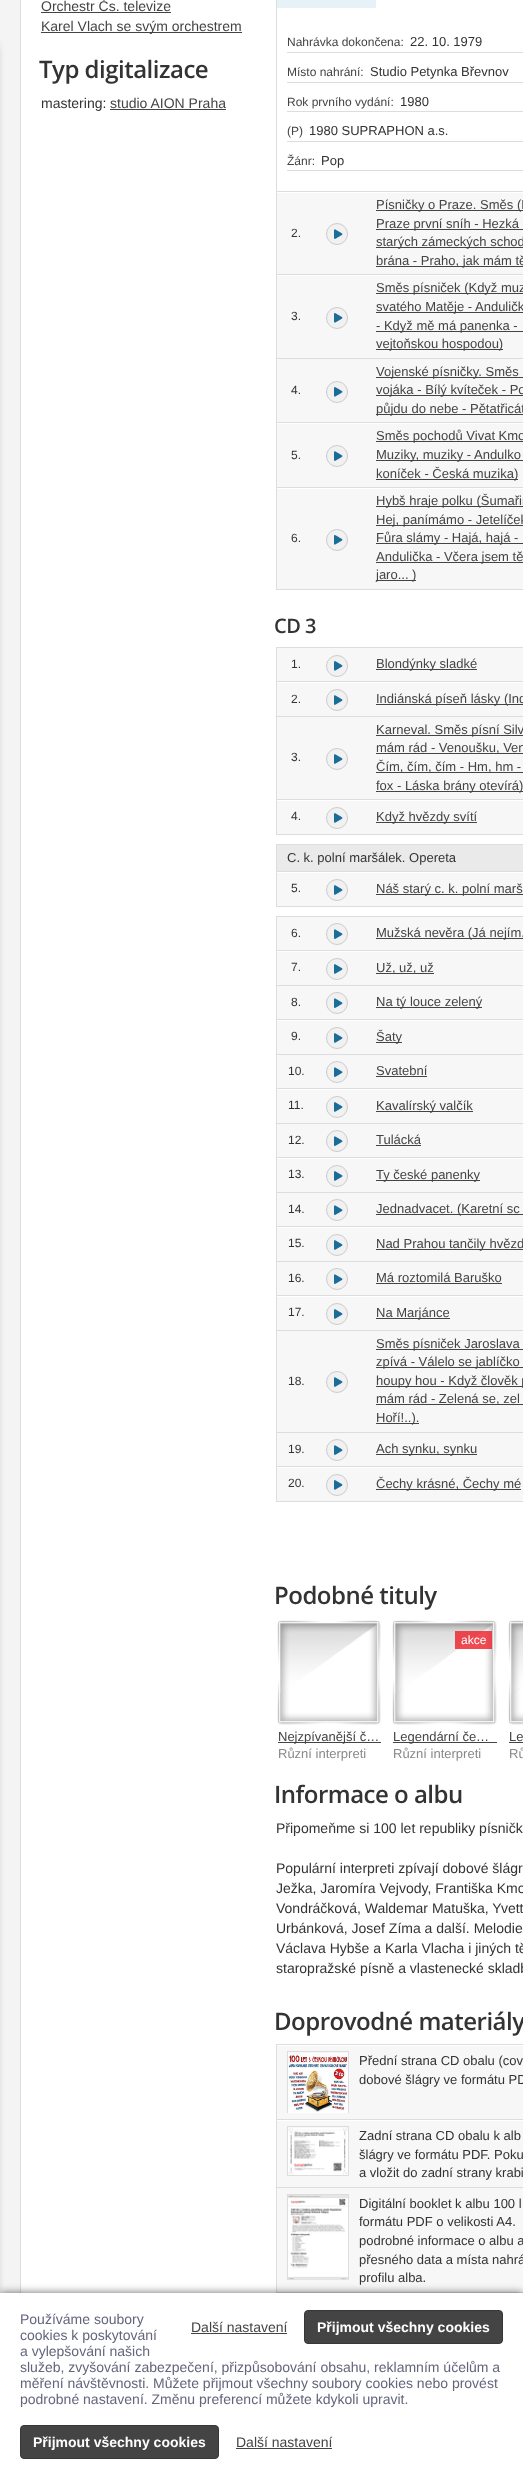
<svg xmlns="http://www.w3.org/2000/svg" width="523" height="2479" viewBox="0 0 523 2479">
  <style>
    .t1 { font: 14px Liberation Sans; fill: #454444; }
    .t2 { font: 600 24px Open Sans; letter-spacing: -0.5px; fill: #333; }
    .t3 { font: 14px Liberation Sans; fill: #333; }
    .t4 { font: 12px Liberation Sans; fill: #454444; }
    .t5 { font: 13px Liberation Sans; fill: #333; }
    .t6 { font: 12px Liberation Sans; fill: #333; }
    .t7 { font: 13px Liberation Sans; fill: #454444; }
    .t8 { font: 600 20px Open Sans; letter-spacing: -0.5px; fill: #333; }
    .t9 { font: 13px Liberation Sans; fill: #888; }
    .t10 { font: 12px Liberation Sans; fill: #fff; }
    .t11 { font: 14px Liberation Sans; fill: #63657b; }
    .t12 { font: bold 14px Liberation Sans; fill: #fff; }
  </style>
  <rect width="100%" height="100%" fill="#f4f4f4"/>
  <rect x="-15" y="46" width="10" height="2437" fill="#8b8b8b" filter="blur(5px)"/>
  <rect x="20" y="-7" width="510" height="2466" rx="5" fill="#e1e1e1" filter="blur(0.5px)"/>
  <rect x="21" y="0" width="502" height="2293" fill="#fff"/>
  <rect x="20.5" y="-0.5" width="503" height="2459" fill="none" stroke="#ddd"/>
  <text x="41" y="11" class="t1">Orchestr Čs. televize</text>
  <rect x="41" y="12" width="130" height="1" fill="#454444"/>
  <rect x="41" y="32" width="201" height="1" fill="#454444"/>
  <text x="41" y="31" class="t1">Karel Vlach se svým orchestrem</text>
  <text x="39" y="78" class="t2">Typ digitalizace</text>
  <text x="41" y="108" class="t3">mastering:</text>
  <text x="110" y="108" class="t1">studio AION Praha</text>
  <rect x="110" y="109" width="116" height="1" fill="#454444"/>
  <rect x="276" y="1501" width="247" height="1" fill="#ddd"/>
  <image x="277" y="0" width="246" height="8" href="images/1.png"/>
  <rect x="287" y="52" width="236" height="1" fill="#ddd"/>
  <text x="287" y="46" class="t4">Nahrávka dokončena:</text>
  <text x="410" y="46" class="t5">22. 10. 1979</text>
  <rect x="287" y="82" width="236" height="1" fill="#ddd"/>
  <text x="287" y="76" class="t4">Místo nahrání:</text>
  <text x="370" y="76" class="t5">Studio Petynka Břevnov</text>
  <rect x="287" y="111" width="236" height="1" fill="#ddd"/>
  <text x="287" y="106" class="t4">Rok prvního vydání:</text>
  <text x="400" y="106" class="t5">1980</text>
  <rect x="287" y="141" width="236" height="1" fill="#ddd"/>
  <text x="287" y="135" class="t4">(P)</text>
  <text x="309" y="135" class="t5">1980 SUPRAPHON a.s.</text>
  <rect x="287" y="170" width="236" height="1" fill="#ddd"/>
  <text x="287" y="165" class="t4">Žánr:</text>
  <text x="321" y="165" class="t5">Pop</text>
  <rect x="277" y="193" width="246" height="81" fill="#f7f7f7"/>
  <rect x="276" y="191" width="247" height="1" fill="#ddd"/>
  <rect x="276" y="274" width="247" height="1" fill="#ddd"/>
  <rect x="276" y="358" width="247" height="1" fill="#ddd"/>
  <rect x="276" y="422" width="247" height="1" fill="#ddd"/>
  <rect x="276" y="487" width="247" height="1" fill="#ddd"/>
  <rect x="276" y="589" width="247" height="1" fill="#ddd"/>
  <rect x="276" y="588" width="1" height="2" fill="#ddd"/>
  <rect x="276" y="487" width="1" height="102" fill="#ddd"/>
  <rect x="276" y="422" width="1" height="66" fill="#ddd"/>
  <rect x="276" y="357" width="1" height="66" fill="#ddd"/>
  <rect x="276" y="274" width="1" height="84" fill="#ddd"/>
  <rect x="276" y="0" width="1" height="275" fill="#ddd"/>
  <text x="291" y="237" class="t6">2.</text>
  <circle cx="337" cy="234" r="10.5" fill="#f1f1f1" stroke="#ccc"/>
  <image x="334" y="229" width="9" height="10" href="images/2.png"/>
  <rect x="376" y="210" width="147" height="1" fill="#454444"/>
  <text x="376" y="209" class="t7">Písničky o Praze. Směs (M</text>
  <rect x="376" y="229" width="147" height="1" fill="#454444"/>
  <text x="376" y="228" class="t7">Praze první sníh - Hezká</text>
  <rect x="376" y="247" width="147" height="1" fill="#454444"/>
  <text x="376" y="246" class="t7">starých zámeckých schod</text>
  <rect x="376" y="266" width="147" height="1" fill="#454444"/>
  <text x="376" y="265" class="t7">brána - Praho, jak mám tě</text>
  <rect x="277" y="276" width="246" height="82" fill="#f7f7f7"/>
  <text x="291" y="320" class="t6">3.</text>
  <circle cx="337" cy="318" r="10.5" fill="#f1f1f1" stroke="#ccc"/>
  <image x="334" y="313" width="9" height="10" href="images/3.png"/>
  <rect x="376" y="293" width="147" height="1" fill="#454444"/>
  <text x="376" y="292" class="t7">Směs písniček (Když muz</text>
  <rect x="376" y="312" width="147" height="1" fill="#454444"/>
  <text x="376" y="311" class="t7">svatého Matěje - Anduličk</text>
  <rect x="376" y="331" width="147" height="1" fill="#454444"/>
  <text x="376" y="330" class="t7">- Když mě má panenka -</text>
  <rect x="376" y="349" width="127" height="1" fill="#454444"/>
  <text x="376" y="348" class="t7">vejtoňskou hospodou)</text>
  <rect x="277" y="359" width="246" height="63" fill="#f7f7f7"/>
  <text x="291" y="394" class="t6">4.</text>
  <circle cx="337" cy="392" r="10.5" fill="#f1f1f1" stroke="#ccc"/>
  <image x="334" y="387" width="9" height="10" href="images/4.png"/>
  <rect x="376" y="377" width="147" height="1" fill="#454444"/>
  <text x="376" y="376" class="t7">Vojenské písničky. Směs</text>
  <rect x="376" y="395" width="147" height="1" fill="#454444"/>
  <text x="376" y="394" class="t7">vojáka - Bílý kvíteček - Po</text>
  <rect x="376" y="414" width="147" height="1" fill="#454444"/>
  <text x="376" y="413" class="t7">půjdu do nebe - Pětatřicát</text>
  <rect x="277" y="424" width="246" height="63" fill="#f7f7f7"/>
  <text x="291" y="459" class="t6">5.</text>
  <circle cx="337" cy="456" r="10.5" fill="#f1f1f1" stroke="#ccc"/>
  <image x="334" y="451" width="9" height="10" href="images/5.png"/>
  <rect x="376" y="441" width="147" height="1" fill="#454444"/>
  <text x="376" y="440" class="t7">Směs pochodů Vivat Kmo</text>
  <rect x="376" y="460" width="147" height="1" fill="#454444"/>
  <text x="376" y="459" class="t7">Muziky, muziky - Andulko</text>
  <rect x="376" y="479" width="142" height="1" fill="#454444"/>
  <text x="376" y="478" class="t7">koníček - Česká muzika)</text>
  <rect x="277" y="489" width="246" height="100" fill="#f7f7f7"/>
  <text x="291" y="542" class="t6">6.</text>
  <circle cx="337" cy="540" r="10.5" fill="#f1f1f1" stroke="#ccc"/>
  <image x="334" y="535" width="9" height="10" href="images/6.png"/>
  <rect x="376" y="506" width="147" height="1" fill="#454444"/>
  <text x="376" y="505" class="t7">Hybš hraje polku (Šumařin</text>
  <rect x="376" y="525" width="147" height="1" fill="#454444"/>
  <text x="376" y="524" class="t7">Hej, panímámo - Jetelíček</text>
  <rect x="376" y="543" width="147" height="1" fill="#454444"/>
  <text x="376" y="542" class="t7">Fůra slámy - Hajá, hajá -</text>
  <rect x="376" y="562" width="147" height="1" fill="#454444"/>
  <text x="376" y="561" class="t7">Andulička - Včera jsem tě</text>
  <rect x="376" y="580" width="40" height="1" fill="#454444"/>
  <text x="376" y="579" class="t7">jaro... )</text>
  <text x="274" y="633" class="t8">CD 3</text>
  <rect x="277" y="648" width="246" height="33" fill="#f7f7f7"/>
  <rect x="276" y="647" width="247" height="1" fill="#ddd"/>
  <rect x="276" y="681" width="247" height="1" fill="#ddd"/>
  <rect x="276" y="716" width="247" height="1" fill="#ddd"/>
  <rect x="276" y="799" width="247" height="1" fill="#ddd"/>
  <rect x="276" y="834" width="247" height="1" fill="#ddd"/>
  <rect x="276" y="833" width="1" height="2" fill="#ddd"/>
  <rect x="276" y="799" width="1" height="35" fill="#ddd"/>
  <rect x="276" y="715" width="1" height="85" fill="#ddd"/>
  <rect x="276" y="681" width="1" height="35" fill="#ddd"/>
  <rect x="276" y="647" width="1" height="35" fill="#ddd"/>
  <text x="291" y="668" class="t6">1.</text>
  <circle cx="337" cy="666" r="10.5" fill="#f1f1f1" stroke="#ccc"/>
  <image x="334" y="661" width="9" height="10" href="images/7.png"/>
  <rect x="376" y="669" width="101" height="1" fill="#454444"/>
  <text x="376" y="668" class="t7">Blondýnky sladké</text>
  <rect x="277" y="683" width="246" height="33" fill="#f7f7f7"/>
  <text x="291" y="703" class="t6">2.</text>
  <circle cx="337" cy="700" r="10.5" fill="#f1f1f1" stroke="#ccc"/>
  <image x="334" y="695" width="9" height="10" href="images/8.png"/>
  <rect x="376" y="704" width="147" height="1" fill="#454444"/>
  <text x="376" y="703" class="t7">Indiánská píseň lásky (Ind</text>
  <rect x="277" y="717" width="246" height="82" fill="#f7f7f7"/>
  <text x="291" y="761" class="t6">3.</text>
  <circle cx="337" cy="759" r="10.5" fill="#f1f1f1" stroke="#ccc"/>
  <image x="334" y="754" width="9" height="10" href="images/9.png"/>
  <rect x="376" y="735" width="147" height="1" fill="#454444"/>
  <text x="376" y="734" class="t7">Karneval. Směs písní Silv</text>
  <rect x="376" y="753" width="147" height="1" fill="#454444"/>
  <text x="376" y="752" class="t7">mám rád - Venoušku, Ven</text>
  <rect x="376" y="772" width="147" height="1" fill="#454444"/>
  <text x="376" y="771" class="t7">Čím, čím, čím - Hm, hm -</text>
  <rect x="376" y="791" width="147" height="1" fill="#454444"/>
  <text x="376" y="790" class="t7">fox - Láska brány otevírá)</text>
  <rect x="277" y="801" width="246" height="33" fill="#f7f7f7"/>
  <text x="291" y="820" class="t6">4.</text>
  <circle cx="337" cy="818" r="10.5" fill="#f1f1f1" stroke="#ccc"/>
  <image x="334" y="813" width="9" height="10" href="images/10.png"/>
  <rect x="376" y="822" width="101" height="1" fill="#454444"/>
  <text x="376" y="821" class="t7">Když hvězdy svítí</text>
  <rect x="277" y="845" width="246" height="26" fill="#eaeaea"/>
  <rect x="276" y="844" width="247" height="1" fill="#ddd"/>
  <rect x="276" y="871" width="247" height="1" fill="#ddd"/>
  <rect x="276" y="906" width="247" height="1" fill="#ddd"/>
  <rect x="276" y="905" width="1" height="2" fill="#ddd"/>
  <rect x="276" y="871" width="1" height="35" fill="#ddd"/>
  <rect x="276" y="844" width="1" height="28" fill="#ddd"/>
  <text x="287" y="862" class="t5">C. k. polní maršálek. Opereta</text>
  <rect x="277" y="873" width="246" height="33" fill="#f7f7f7"/>
  <text x="291" y="892" class="t6">5.</text>
  <circle cx="337" cy="890" r="10.5" fill="#f1f1f1" stroke="#ccc"/>
  <image x="334" y="885" width="9" height="10" href="images/11.png"/>
  <rect x="376" y="894" width="147" height="1" fill="#454444"/>
  <text x="376" y="893" class="t7">Náš starý c. k. polní marš</text>
  <rect x="277" y="917" width="246" height="33" fill="#f7f7f7"/>
  <rect x="276" y="916" width="247" height="1" fill="#ddd"/>
  <rect x="276" y="950" width="247" height="1" fill="#ddd"/>
  <rect x="276" y="985" width="247" height="1" fill="#ddd"/>
  <rect x="276" y="1019" width="247" height="1" fill="#ddd"/>
  <rect x="276" y="1054" width="247" height="1" fill="#ddd"/>
  <rect x="276" y="1088" width="247" height="1" fill="#ddd"/>
  <rect x="276" y="1123" width="247" height="1" fill="#ddd"/>
  <rect x="276" y="1157" width="247" height="1" fill="#ddd"/>
  <rect x="276" y="1192" width="247" height="1" fill="#ddd"/>
  <rect x="276" y="1226" width="247" height="1" fill="#ddd"/>
  <rect x="276" y="1261" width="247" height="1" fill="#ddd"/>
  <rect x="276" y="1295" width="247" height="1" fill="#ddd"/>
  <rect x="276" y="1330" width="247" height="1" fill="#ddd"/>
  <rect x="276" y="1432" width="247" height="1" fill="#ddd"/>
  <rect x="276" y="1466" width="247" height="1" fill="#ddd"/>
  <rect x="276" y="1500" width="1" height="2" fill="#ddd"/>
  <rect x="276" y="1466" width="1" height="35" fill="#ddd"/>
  <rect x="276" y="1431" width="1" height="36" fill="#ddd"/>
  <rect x="276" y="1329" width="1" height="103" fill="#ddd"/>
  <rect x="276" y="1295" width="1" height="35" fill="#ddd"/>
  <rect x="276" y="1260" width="1" height="36" fill="#ddd"/>
  <rect x="276" y="1226" width="1" height="35" fill="#ddd"/>
  <rect x="276" y="1191" width="1" height="36" fill="#ddd"/>
  <rect x="276" y="1157" width="1" height="35" fill="#ddd"/>
  <rect x="276" y="1122" width="1" height="36" fill="#ddd"/>
  <rect x="276" y="1088" width="1" height="35" fill="#ddd"/>
  <rect x="276" y="1053" width="1" height="36" fill="#ddd"/>
  <rect x="276" y="1019" width="1" height="35" fill="#ddd"/>
  <rect x="276" y="984" width="1" height="36" fill="#ddd"/>
  <rect x="276" y="950" width="1" height="35" fill="#ddd"/>
  <rect x="276" y="916" width="1" height="35" fill="#ddd"/>
  <text x="291" y="937" class="t6">6.</text>
  <circle cx="337" cy="934" r="10.5" fill="#f1f1f1" stroke="#ccc"/>
  <image x="334" y="929" width="9" height="10" href="images/12.png"/>
  <rect x="376" y="938" width="147" height="1" fill="#454444"/>
  <text x="376" y="937" class="t7">Mužská nevěra (Já nejím,</text>
  <rect x="277" y="952" width="246" height="33" fill="#f7f7f7"/>
  <text x="291" y="971" class="t6">7.</text>
  <circle cx="337" cy="969" r="10.5" fill="#f1f1f1" stroke="#ccc"/>
  <image x="334" y="964" width="9" height="10" href="images/11.png"/>
  <rect x="376" y="973" width="58" height="1" fill="#454444"/>
  <text x="376" y="972" class="t7">Už, už, už</text>
  <rect x="277" y="986" width="246" height="33" fill="#f7f7f7"/>
  <text x="291" y="1006" class="t6">8.</text>
  <circle cx="337" cy="1003" r="10.5" fill="#f1f1f1" stroke="#ccc"/>
  <image x="334" y="998" width="9" height="10" href="images/12.png"/>
  <rect x="376" y="1007" width="106" height="1" fill="#454444"/>
  <text x="376" y="1006" class="t7">Na tý louce zelený</text>
  <rect x="277" y="1021" width="246" height="33" fill="#f7f7f7"/>
  <text x="291" y="1040" class="t6">9.</text>
  <circle cx="337" cy="1038" r="10.5" fill="#f1f1f1" stroke="#ccc"/>
  <image x="334" y="1033" width="9" height="10" href="images/11.png"/>
  <rect x="376" y="1042" width="26" height="1" fill="#454444"/>
  <text x="376" y="1041" class="t7">Šaty</text>
  <rect x="277" y="1055" width="246" height="33" fill="#f7f7f7"/>
  <text x="288" y="1075" class="t6">10.</text>
  <circle cx="337" cy="1072" r="10.5" fill="#f1f1f1" stroke="#ccc"/>
  <image x="334" y="1067" width="9" height="10" href="images/12.png"/>
  <text x="376" y="1075" class="t7">Svatební</text>
  <rect x="376" y="1076" width="51" height="1" fill="#454444"/>
  <rect x="277" y="1090" width="246" height="33" fill="#f7f7f7"/>
  <text x="288" y="1109" class="t6">11.</text>
  <circle cx="337" cy="1107" r="10.5" fill="#f1f1f1" stroke="#ccc"/>
  <image x="334" y="1102" width="9" height="10" href="images/11.png"/>
  <rect x="376" y="1111" width="97" height="1" fill="#454444"/>
  <text x="376" y="1110" class="t7">Kavalírský valčík</text>
  <rect x="277" y="1124" width="246" height="33" fill="#f7f7f7"/>
  <text x="288" y="1144" class="t6">12.</text>
  <circle cx="337" cy="1141" r="10.5" fill="#f1f1f1" stroke="#ccc"/>
  <image x="334" y="1136" width="9" height="10" href="images/12.png"/>
  <text x="376" y="1144" class="t7">Tulácká</text>
  <rect x="376" y="1145" width="45" height="1" fill="#454444"/>
  <rect x="277" y="1159" width="246" height="33" fill="#f7f7f7"/>
  <text x="288" y="1178" class="t6">13.</text>
  <circle cx="337" cy="1176" r="10.5" fill="#f1f1f1" stroke="#ccc"/>
  <image x="334" y="1171" width="9" height="10" href="images/11.png"/>
  <rect x="376" y="1180" width="104" height="1" fill="#454444"/>
  <text x="376" y="1179" class="t7">Ty české panenky</text>
  <rect x="277" y="1193" width="246" height="33" fill="#f7f7f7"/>
  <text x="288" y="1213" class="t6">14.</text>
  <circle cx="337" cy="1210" r="10.5" fill="#f1f1f1" stroke="#ccc"/>
  <image x="334" y="1205" width="9" height="10" href="images/12.png"/>
  <rect x="376" y="1214" width="147" height="1" fill="#454444"/>
  <text x="376" y="1213" class="t7">Jednadvacet. (Karetní sc</text>
  <rect x="277" y="1228" width="246" height="33" fill="#f7f7f7"/>
  <text x="288" y="1247" class="t6">15.</text>
  <circle cx="337" cy="1245" r="10.5" fill="#f1f1f1" stroke="#ccc"/>
  <image x="334" y="1240" width="9" height="10" href="images/11.png"/>
  <rect x="376" y="1249" width="147" height="1" fill="#454444"/>
  <text x="376" y="1248" class="t7">Nad Prahou tančily hvězd</text>
  <rect x="277" y="1262" width="246" height="33" fill="#f7f7f7"/>
  <text x="288" y="1282" class="t6">16.</text>
  <circle cx="337" cy="1279" r="10.5" fill="#f1f1f1" stroke="#ccc"/>
  <image x="334" y="1274" width="9" height="10" href="images/12.png"/>
  <text x="376" y="1282" class="t7">Má roztomilá Baruško</text>
  <rect x="376" y="1283" width="126" height="1" fill="#454444"/>
  <rect x="277" y="1297" width="246" height="33" fill="#f7f7f7"/>
  <text x="288" y="1316" class="t6">17.</text>
  <circle cx="337" cy="1314" r="10.5" fill="#f1f1f1" stroke="#ccc"/>
  <image x="334" y="1309" width="9" height="10" href="images/11.png"/>
  <rect x="376" y="1318" width="74" height="1" fill="#454444"/>
  <text x="376" y="1317" class="t7">Na Marjánce</text>
  <rect x="277" y="1331" width="246" height="101" fill="#f7f7f7"/>
  <text x="288" y="1385" class="t6">18.</text>
  <circle cx="337" cy="1382" r="10.5" fill="#f1f1f1" stroke="#ccc"/>
  <image x="334" y="1377" width="9" height="10" href="images/13.png"/>
  <rect x="376" y="1349" width="147" height="1" fill="#454444"/>
  <text x="376" y="1348" class="t7">Směs písniček Jaroslava</text>
  <rect x="376" y="1367" width="147" height="1" fill="#454444"/>
  <text x="376" y="1366" class="t7">zpívá - Válelo se jablíčko</text>
  <rect x="376" y="1386" width="147" height="1" fill="#454444"/>
  <text x="376" y="1385" class="t7">houpy hou - Když člověk p</text>
  <rect x="376" y="1404" width="147" height="1" fill="#454444"/>
  <text x="376" y="1403" class="t7">mám rád - Zelená se, zel</text>
  <rect x="376" y="1423" width="43" height="1" fill="#454444"/>
  <text x="376" y="1422" class="t7">Hoří!..).</text>
  <rect x="277" y="1433" width="246" height="33" fill="#f7f7f7"/>
  <text x="288" y="1453" class="t6">19.</text>
  <circle cx="337" cy="1450" r="10.5" fill="#f1f1f1" stroke="#ccc"/>
  <image x="334" y="1445" width="9" height="10" href="images/14.png"/>
  <rect x="376" y="1454" width="101" height="1" fill="#454444"/>
  <text x="376" y="1453" class="t7">Ach synku, synku</text>
  <rect x="277" y="1468" width="246" height="33" fill="#f7f7f7"/>
  <text x="288" y="1487" class="t6">20.</text>
  <circle cx="337" cy="1485" r="10.5" fill="#f1f1f1" stroke="#ccc"/>
  <image x="334" y="1480" width="9" height="10" href="images/15.png"/>
  <rect x="376" y="1489" width="145" height="1" fill="#454444"/>
  <text x="376" y="1488" class="t7">Čechy krásné, Čechy mé</text>
  <text x="274" y="1604" class="t2">Podobné tituly</text>
  <image x="277" y="1620" width="104" height="105" href="images/16.png"/>
  <rect x="278" y="1742" width="103" height="1" fill="#454444"/>
  <text x="278" y="1741" class="t7">Nejzpívanější č…</text>
  <text x="278" y="1758" class="t9">Různí interpreti</text>
  <image x="392" y="1620" width="105" height="105" href="images/17.png"/>
  <rect x="455" y="1631" width="37" height="18" fill="#ec1d27cc"/>
  <text x="461" y="1644" class="t10">akce</text>
  <rect x="393" y="1742" width="104" height="1" fill="#454444"/>
  <text x="393" y="1741" class="t7">Legendární če…</text>
  <text x="393" y="1758" class="t9">Různí interpreti</text>
  <image x="508" y="1620" width="15" height="105" href="images/18.png"/>
  <text x="509" y="1741" class="t7">Le</text>
  <rect x="509" y="1742" width="14" height="1" fill="#454444"/>
  <text x="509" y="1758" class="t9">Rů</text>
  <text x="274" y="1803" class="t2">Informace o albu</text>
  <text x="276" y="1833" class="t3">Připomeňme si 100 let republiky písničk</text>
  <text x="276" y="1873" class="t3">Populární interpreti zpívají dobové šlágr</text>
  <text x="276" y="1893" class="t3">Ježka, Jaromíra Vejvody, Františka Kmo</text>
  <text x="276" y="1913" class="t3">Vondráčková, Waldemar Matuška, Yvett</text>
  <text x="276" y="1933" class="t3">Urbánková, Josef Zíma a další. Melodie</text>
  <text x="276" y="1953" class="t3">Václava Hybše a Karla Vlacha i jiných tě</text>
  <text x="276" y="1973" class="t3">staropražské písně a vlastenecké skladb</text>
  <text x="274" y="2030" class="t2">Doprovodné materiály</text>
  <rect x="276" y="2292" width="247" height="1" fill="#ddd"/>
  <rect x="277" y="2046" width="246" height="73" fill="#f7f7f7"/>
  <rect x="276" y="2044" width="247" height="1" fill="#ddd"/>
  <rect x="276" y="2119" width="247" height="1" fill="#ddd"/>
  <rect x="276" y="2187" width="247" height="1" fill="#ddd"/>
  <rect x="276" y="2187" width="1" height="106" fill="#ddd"/>
  <rect x="276" y="2119" width="1" height="69" fill="#ddd"/>
  <rect x="276" y="2044" width="1" height="76" fill="#ddd"/>
  <rect x="287.5" y="2051.5" width="61" height="61" fill="none" stroke="#ddd"/>
  <image x="288" y="2053" width="60" height="60" href="images/19.png"/>
  <text x="359" y="2065" class="t5">Přední strana CD obalu (cov</text>
  <text x="359" y="2084" class="t5">dobové šlágry ve formátu PD</text>
  <rect x="277" y="2121" width="246" height="66" fill="#f7f7f7"/>
  <rect x="287.5" y="2126.5" width="61" height="49" fill="none" stroke="#ddd"/>
  <image x="288" y="2128" width="60" height="47" href="images/20.png"/>
  <text x="359" y="2140" class="t5">Zadní strana CD obalu k alb</text>
  <text x="359" y="2159" class="t5">šlágry ve formátu PDF. Poku</text>
  <text x="359" y="2177" class="t5">a vložit do zadní strany krabi</text>
  <rect x="277" y="2188" width="246" height="104" fill="#f7f7f7"/>
  <rect x="287.5" y="2194.5" width="61" height="85" fill="none" stroke="#ddd"/>
  <image x="288" y="2195" width="60" height="85" href="images/21.png"/>
  <text x="359" y="2208" class="t5">Digitální booklet k albu 100 l</text>
  <text x="359" y="2226" class="t5">formátu PDF o velikosti A4.</text>
  <text x="359" y="2245" class="t5">podrobné informace o albu a</text>
  <text x="359" y="2264" class="t5">přesného data a místa nahrá</text>
  <text x="359" y="2282" class="t5">profilu alba.</text>
  <rect x="0" y="2293" width="523" height="186" fill="#00000099" filter="blur(4px)"/>
  <rect x="0" y="2293" width="523" height="186" fill="#fff"/>
  <text x="20" y="2324" class="t11">Používáme soubory</text>
  <text x="20" y="2340" class="t11">cookies k poskytování</text>
  <text x="20" y="2356" class="t11">a vylepšování našich</text>
  <text x="20" y="2372" class="t11">služeb, zvyšování zabezpečení, přizpůsobování obsahu, reklamním účelům a</text>
  <text x="20" y="2388" class="t11">měření návštěvnosti. Můžete přijmout všechny soubory cookies nebo provést</text>
  <text x="20" y="2404" class="t11">podrobné nastavení. Změnu preferencí můžete kdykoli upravit.</text>
  <text x="191" y="2332" class="t1">Další nastavení</text>
  <rect x="191" y="2333" width="96" height="1" fill="#454444"/>
  <rect x="304.5" y="2310.5" width="198" height="33" rx="3.5" fill="#454444" stroke="#383737"/>
  <text x="317" y="2332" class="t12">Přijmout všechny cookies</text>
  <rect x="20.5" y="2425.5" width="198" height="33" rx="3.5" fill="#454444" stroke="#383737"/>
  <text x="33" y="2447" class="t12">Přijmout všechny cookies</text>
  <text x="236" y="2447" class="t1">Další nastavení</text>
  <rect x="236" y="2448" width="96" height="1" fill="#454444"/>
</svg>
